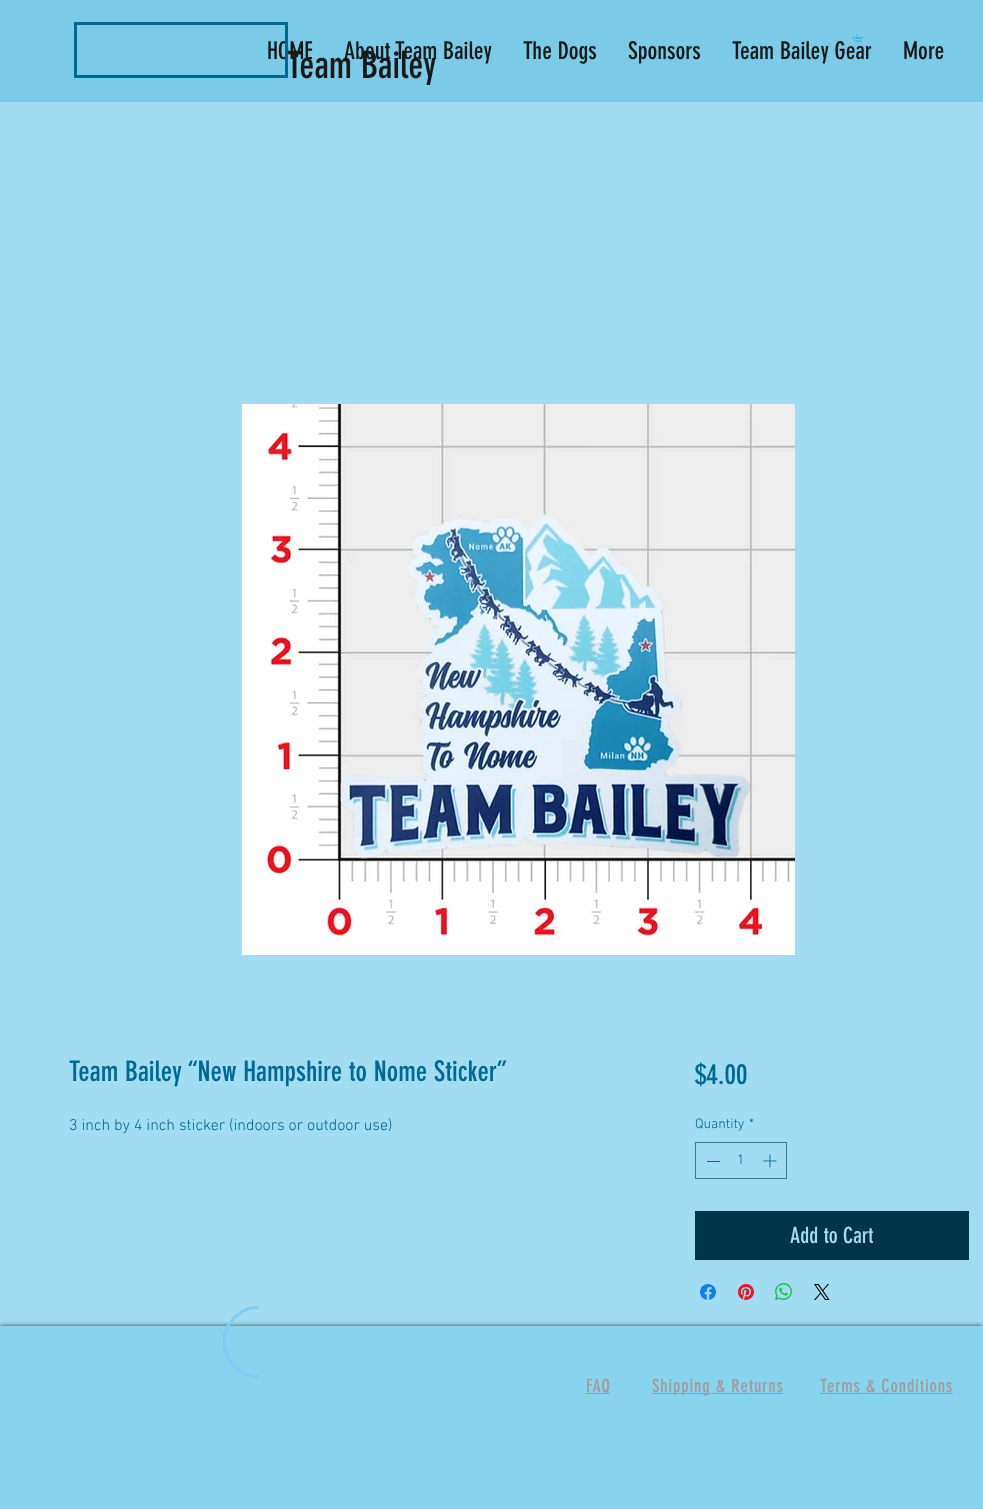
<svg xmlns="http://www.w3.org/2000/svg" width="983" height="1509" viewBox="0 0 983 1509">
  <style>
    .t1 { font: 24px 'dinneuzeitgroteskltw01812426'; fill: #181919; }
    .t2 { font: 37px 'dinneuzeitgroteskltw01812426'; fill: #181919; }
    .t3 { font: 28px 'dinneuzeitgroteskltw01812426'; fill: #006990; }
    .t4 { font: 300 16px 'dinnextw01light'; fill: #006990; }
    .t5 { font: 300 14px 'dinnextw01light'; fill: #006990; }
    .t6 { font: 22px 'dinneuzeitgroteskltw01812426'; fill: #a1dcf2; }
    .t7 { font: 18px 'dinneuzeitgroteskltw01812426'; letter-spacing: 0.9px; fill: #a29c9c; }
  </style>
  <defs>
    <clipPath id="clip1"><rect x="223" y="1306" width="36" height="72"/></clipPath>
  </defs>
  <rect width="100%" height="100%" fill="#a1dcf2"/>
  <rect x="0" y="0" width="983" height="102" fill="#7bcae8"/>
  <text x="732" y="59" class="t1">Team Bailey Gear</text>
  <image x="853" y="34" width="10" height="8" href="images/1.png"/>
  <text x="267" y="59" class="t1">HOME</text>
  <text x="344" y="59" class="t1">About Team Bailey</text>
  <text x="523" y="59" class="t1">The Dogs</text>
  <text x="628" y="59" class="t1">Sponsors</text>
  <text x="903" y="59" class="t1">More</text>
  <rect x="75.5" y="23.5" width="211" height="53" fill="none" stroke="#006990" stroke-width="3"/>
  <text x="287" y="78" class="t2">Team Bailey</text>
  <image x="242" y="404" width="553" height="551" href="images/2.png"/>
  <text x="69" y="1081" class="t3">Team Bailey “New Hampshire to Nome Sticker”</text>
  <text x="69" y="1130" class="t4">3 inch by 4 inch sticker (indoors or outdoor use)</text>
  <text x="695" y="1084" class="t3">$4.00</text>
  <text x="695" y="1128" class="t5">Quantity</text>
  <text x="749" y="1128" class="t5">*</text>
  <rect x="695.5" y="1142.5" width="91" height="36" fill="none" stroke="#40778c"/>
  <rect x="707" y="1161" width="13" height="1" fill="#006990"/>
  <text x="737" y="1164" class="t5">1</text>
  <image x="763" y="1154" width="14" height="14" href="images/3.png"/>
  <rect x="695" y="1211" width="274" height="49" fill="#003448"/>
  <text x="790" y="1243" class="t6">Add to Cart</text>
  <image x="700" y="1284" width="16" height="16" href="images/4.png"/>
  <image x="738" y="1284" width="16" height="16" href="images/5.png"/>
  <image x="775" y="1283" width="17" height="17" href="images/6.png"/>
  <image x="814" y="1284" width="16" height="16" href="images/7.png"/>
  <rect x="0" y="1326" width="983" height="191" fill="#000000b3" filter="blur(2.5px)"/>
  <rect x="0" y="1326" width="983" height="183" fill="#88d3ee"/>
  <g clip-path="url(#clip1)">
    <path d="M258.5 1376.5C224.5 1376.5 211 1332.5 239.5 1313.5C245 1309.5 251.5 1307.5 258.5 1307.5" fill="none" stroke="#7fccf7" stroke-width="3"/>
  </g>
  <rect x="586" y="1393" width="24" height="1" fill="#a29c9c"/>
  <text x="586" y="1392" class="t7">FAQ</text>
  <rect x="652" y="1393" width="131" height="1" fill="#a29c9c"/>
  <text x="652" y="1392" class="t7">Shipping &amp; Returns</text>
  <text x="820" y="1392" class="t7">Terms &amp; Conditions</text>
  <rect x="820" y="1393" width="133" height="1" fill="#a29c9c"/>
</svg>
